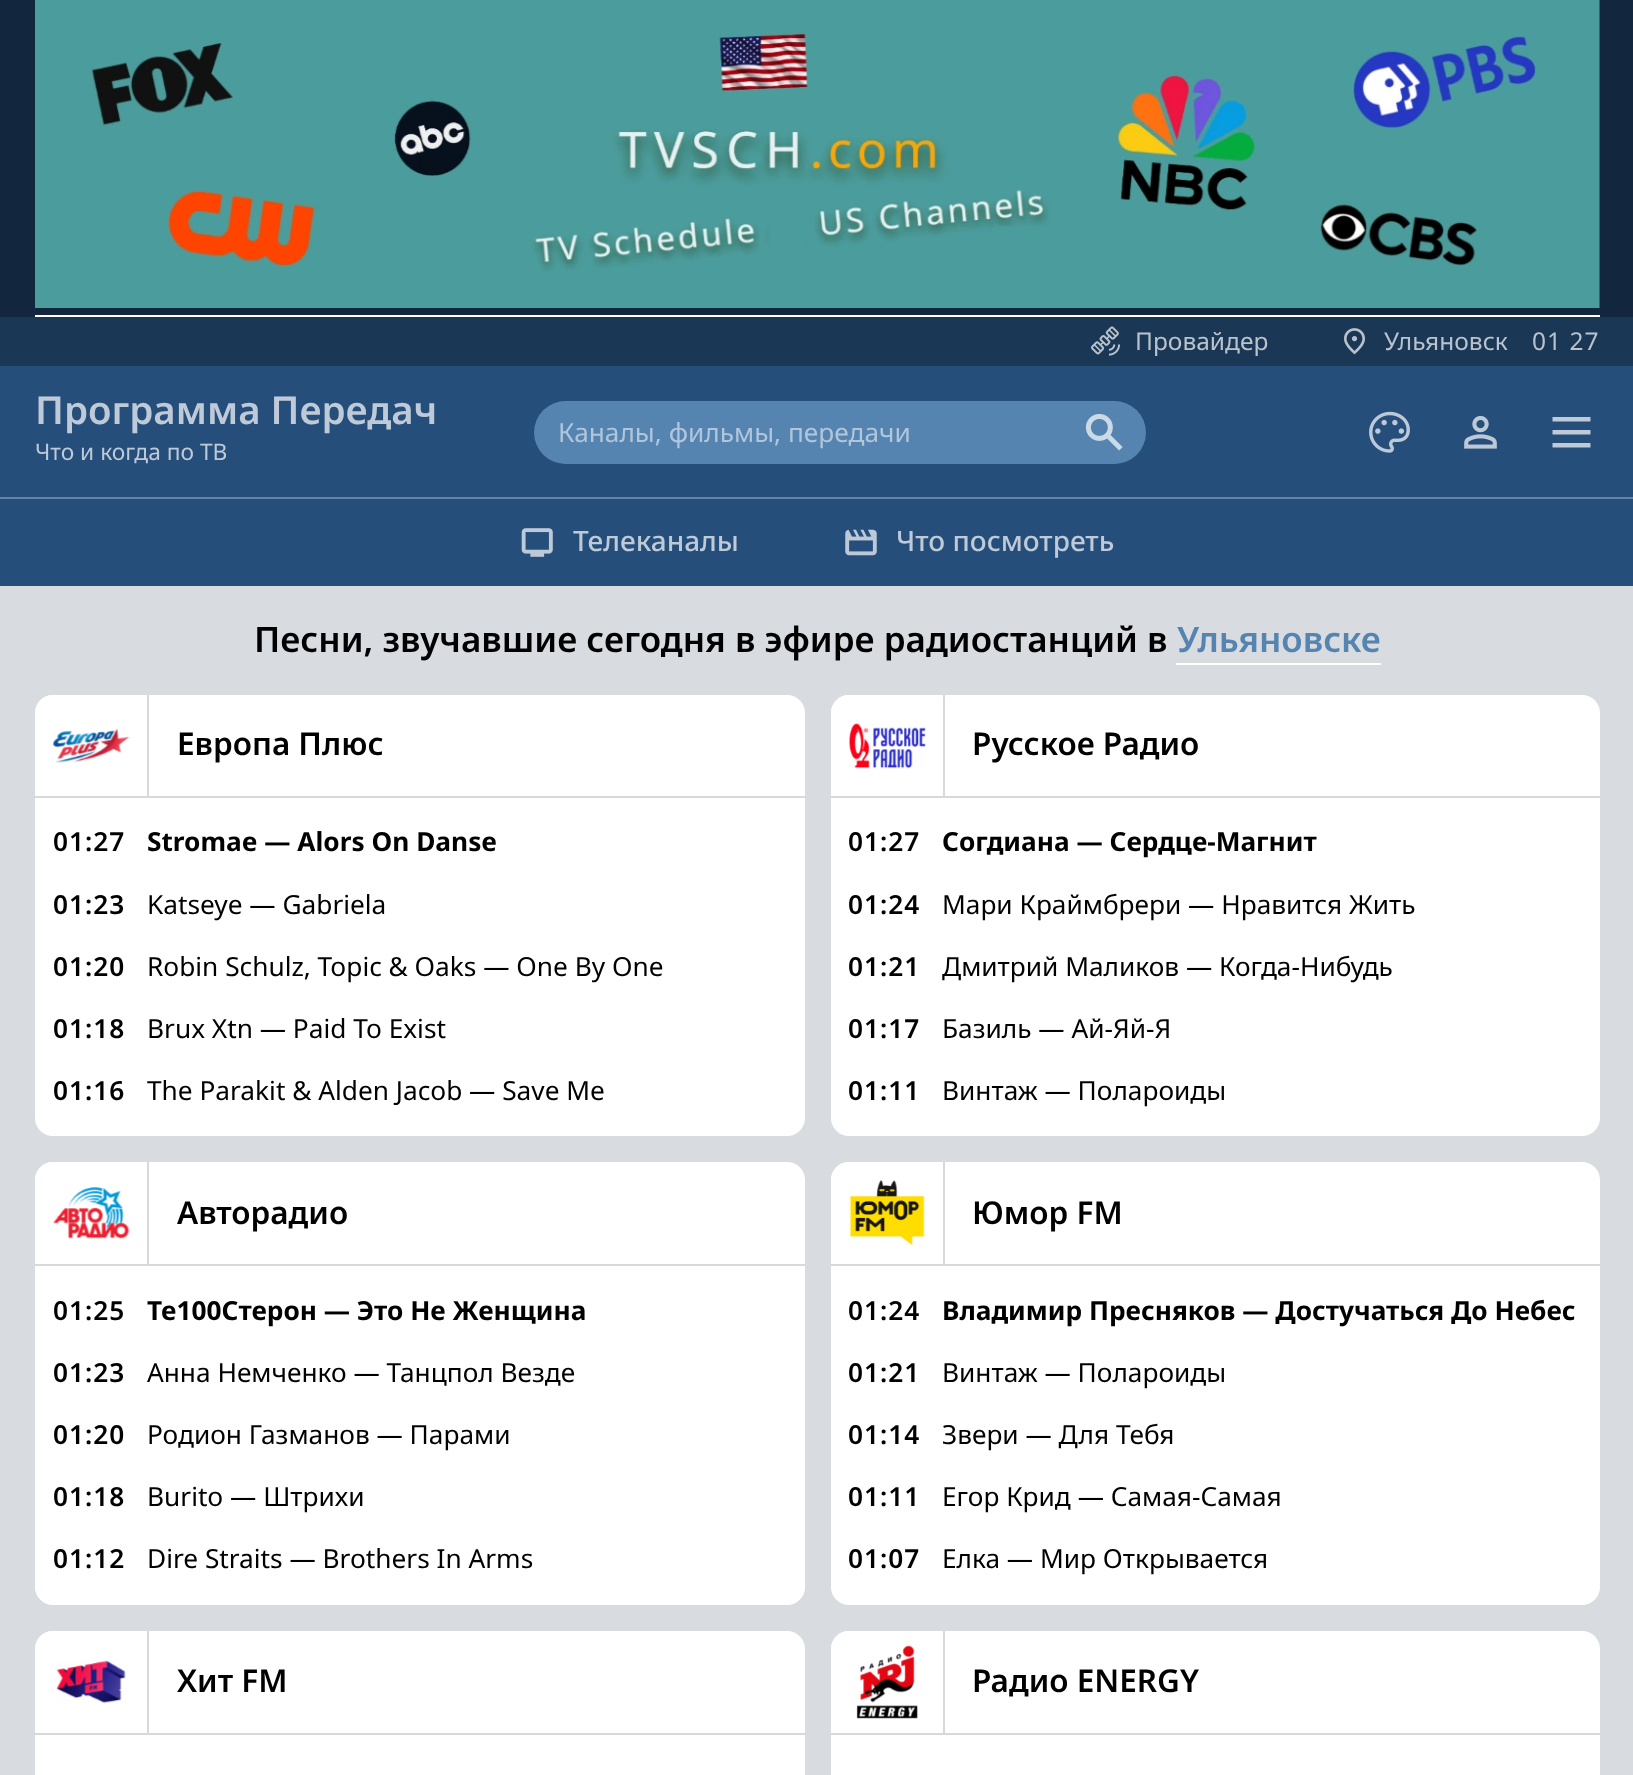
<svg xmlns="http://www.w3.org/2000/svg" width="1633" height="1775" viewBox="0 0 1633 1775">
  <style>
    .t1 { font: 24.5px Noto Sans; fill: #bac3cc; }
    .t2 { font: 24.5px Noto Sans; letter-spacing: 1px; fill: #bac3cc; }
    .t3 { font: 600 38.5px Noto Sans; fill: #becad7; }
    .t4 { font: 22.75px Noto Sans; fill: #becad7; }
    .t5 { font: 26.25px Noto Sans; fill: #b1c6db; }
    .t6 { font: 500 28px Noto Sans; fill: #becad7; }
    .t7 { font: 600 35px Noto Sans; fill: #000; }
    .t8 { font: 600 35px Noto Sans; fill: #5584b1; }
    .t9 { font: 600 31.5px Noto Sans; fill: #000; }
    .t10 { font: 600 26.25px Noto Sans; letter-spacing: 1px; fill: #000; }
    .t11 { font: bold 26.25px Noto Sans; fill: #000; }
    .t12 { font: 26.25px Noto Sans; fill: #000; }
  </style>
  <rect width="100%" height="100%" fill="#d8dce0"/>
  <rect x="0" y="366" width="1633" height="220" fill="#254e7b"/>
  <rect x="0" y="0" width="1633" height="317" fill="#12273e"/>
  <image x="35" y="0" width="1565" height="308" href="images/1.png"/>
  <rect x="35" y="315" width="1565" height="2" fill="#fff"/>
  <rect x="0" y="317" width="1633" height="49" fill="#1a3756"/>
  <image x="1091" y="326" width="30" height="30" href="images/2.png"/>
  <text x="1135" y="350" class="t1">Провайдер</text>
  <image x="1344" y="328" width="21" height="27" href="images/3.png"/>
  <text x="1384" y="350" class="t1">Ульяновск</text>
  <text x="1532" y="350" class="t2">01 27</text>
  <text x="35" y="424" class="t3">Программа Передач</text>
  <text x="35" y="460" class="t4">Что и когда по ТВ</text>
  <rect x="534" y="401" width="612" height="63" rx="31.5" fill="#5584b1"/>
  <text x="558" y="442" class="t5">Каналы, фильмы, передачи</text>
  <image x="1085" y="414" width="38" height="37" href="images/4.png"/>
  <image x="1369" y="411" width="41" height="42" href="images/5.png"/>
  <image x="1464" y="415" width="33" height="34" href="images/6.png"/>
  <path d="M1552.5 421.5V417H1590.5V421.5ZM1552.5 447.5V443H1590.5V447.5ZM1552.5 434.5V430H1590.5V434.5Z" fill="#becad7"/>
  <image x="521" y="528" width="32" height="29" href="images/7.png"/>
  <text x="573" y="551" class="t6">Телеканалы</text>
  <image x="845" y="529" width="32" height="27" href="images/8.png"/>
  <text x="896" y="551" class="t6">Что посмотреть</text>
  <rect x="0" y="497" width="1633" height="2" fill="#6683a3"/>
  <text x="254" y="652" class="t7">Песни, звучавшие сегодня в эфире радиостанций в</text>
  <text x="1177" y="652" class="t8">Ульяновске</text>
  <rect x="1176" y="663" width="205" height="2" fill="#fff"/>
  <rect x="35" y="695" width="770" height="441" rx="18" fill="#fff"/>
  <rect x="35" y="796" width="770" height="2" fill="#d9d9d9"/>
  <path d="M53 695H147V796H35V713C35 703 43 695 53 695Z" fill="#fff"/>
  <image x="53" y="728" width="77" height="35" href="images/9.png"/>
  <rect x="147" y="695" width="2" height="101" fill="#d9d9d9"/>
  <text x="177" y="755" class="t9">Европа Плюс</text>
  <text x="53" y="851" class="t10">01:27</text>
  <text x="147" y="851" class="t11">Stromae — Alors On Danse</text>
  <text x="53" y="914" class="t10">01:23</text>
  <text x="147" y="914" class="t12">Katseye — Gabriela</text>
  <text x="53" y="976" class="t10">01:20</text>
  <text x="147" y="976" class="t12">Robin Schulz, Topic &amp; Oaks — One By One</text>
  <text x="53" y="1038" class="t10">01:18</text>
  <text x="147" y="1038" class="t12">Brux Xtn — Paid To Exist</text>
  <text x="53" y="1100" class="t10">01:16</text>
  <text x="147" y="1100" class="t12">The Parakit &amp; Alden Jacob — Save Me</text>
  <rect x="831" y="695" width="769" height="441" rx="18" fill="#fff"/>
  <rect x="831" y="796" width="769" height="2" fill="#d9d9d9"/>
  <path d="M849 695H943V796H831V713C831 703 839 695 849 695Z" fill="#fff"/>
  <image x="849" y="723" width="77" height="46" href="images/10.png"/>
  <rect x="943" y="695" width="2" height="101" fill="#d9d9d9"/>
  <text x="972" y="755" class="t9">Русское Радио</text>
  <text x="848" y="851" class="t10">01:27</text>
  <text x="942" y="851" class="t11">Согдиана — Сердце-Магнит</text>
  <text x="848" y="914" class="t10">01:24</text>
  <text x="942" y="914" class="t12">Мари Краймбрери — Нравится Жить</text>
  <text x="848" y="976" class="t10">01:21</text>
  <text x="942" y="976" class="t12">Дмитрий Маликов — Когда-Нибудь</text>
  <text x="848" y="1038" class="t10">01:17</text>
  <text x="942" y="1038" class="t12">Базиль — Ай-Яй-Я</text>
  <text x="848" y="1100" class="t10">01:11</text>
  <text x="942" y="1100" class="t12">Винтаж — Полароиды</text>
  <rect x="35" y="1162" width="770" height="443" rx="18" fill="#fff"/>
  <rect x="35" y="1264" width="770" height="2" fill="#d9d9d9"/>
  <path d="M53 1162H147V1264H35V1180C35 1170 43 1162 53 1162Z" fill="#fff"/>
  <image x="53" y="1187" width="77" height="52" href="images/11.png"/>
  <rect x="147" y="1162" width="2" height="102" fill="#d9d9d9"/>
  <text x="177" y="1224" class="t9">Авторадио</text>
  <text x="53" y="1320" class="t10">01:25</text>
  <text x="147" y="1320" class="t11">Те100Стерон — Это Не Женщина</text>
  <text x="53" y="1382" class="t10">01:23</text>
  <text x="147" y="1382" class="t12">Анна Немченко — Танцпол Везде</text>
  <text x="53" y="1444" class="t10">01:20</text>
  <text x="147" y="1444" class="t12">Родион Газманов — Парами</text>
  <text x="53" y="1506" class="t10">01:18</text>
  <text x="147" y="1506" class="t12">Burito — Штрихи</text>
  <text x="53" y="1568" class="t10">01:12</text>
  <text x="147" y="1568" class="t12">Dire Straits — Brothers In Arms</text>
  <rect x="831" y="1162" width="769" height="443" rx="18" fill="#fff"/>
  <rect x="831" y="1264" width="769" height="2" fill="#d9d9d9"/>
  <path d="M849 1162H943V1264H831V1180C831 1170 839 1162 849 1162Z" fill="#fff"/>
  <image x="850" y="1180" width="75" height="65" href="images/12.png"/>
  <rect x="943" y="1162" width="2" height="102" fill="#d9d9d9"/>
  <text x="972" y="1224" class="t9">Юмор FM</text>
  <text x="848" y="1320" class="t10">01:24</text>
  <text x="942" y="1320" class="t11">Владимир Пресняков — Достучаться До Небес</text>
  <text x="848" y="1382" class="t10">01:21</text>
  <text x="942" y="1382" class="t12">Винтаж — Полароиды</text>
  <text x="848" y="1444" class="t10">01:14</text>
  <text x="942" y="1444" class="t12">Звери — Для Тебя</text>
  <text x="848" y="1506" class="t10">01:11</text>
  <text x="942" y="1506" class="t12">Егор Крид — Самая-Самая</text>
  <text x="848" y="1568" class="t10">01:07</text>
  <text x="942" y="1568" class="t12">Елка — Мир Открывается</text>
  <rect x="35" y="1631" width="770" height="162" rx="18" fill="#fff"/>
  <rect x="35" y="1733" width="770" height="2" fill="#d9d9d9"/>
  <path d="M53 1631H147V1733H35V1649C35 1639 43 1631 53 1631Z" fill="#fff"/>
  <image x="56" y="1660" width="70" height="44" href="images/13.png"/>
  <rect x="147" y="1631" width="2" height="102" fill="#d9d9d9"/>
  <text x="177" y="1692" class="t9">Хит FM</text>
  <rect x="831" y="1631" width="769" height="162" rx="18" fill="#fff"/>
  <rect x="831" y="1733" width="769" height="2" fill="#d9d9d9"/>
  <path d="M849 1631H943V1733H831V1649C831 1639 839 1631 849 1631Z" fill="#fff"/>
  <image x="856" y="1645" width="62" height="74" href="images/14.png"/>
  <rect x="943" y="1631" width="2" height="102" fill="#d9d9d9"/>
  <text x="972" y="1692" class="t9">Радио ENERGY</text>
</svg>
